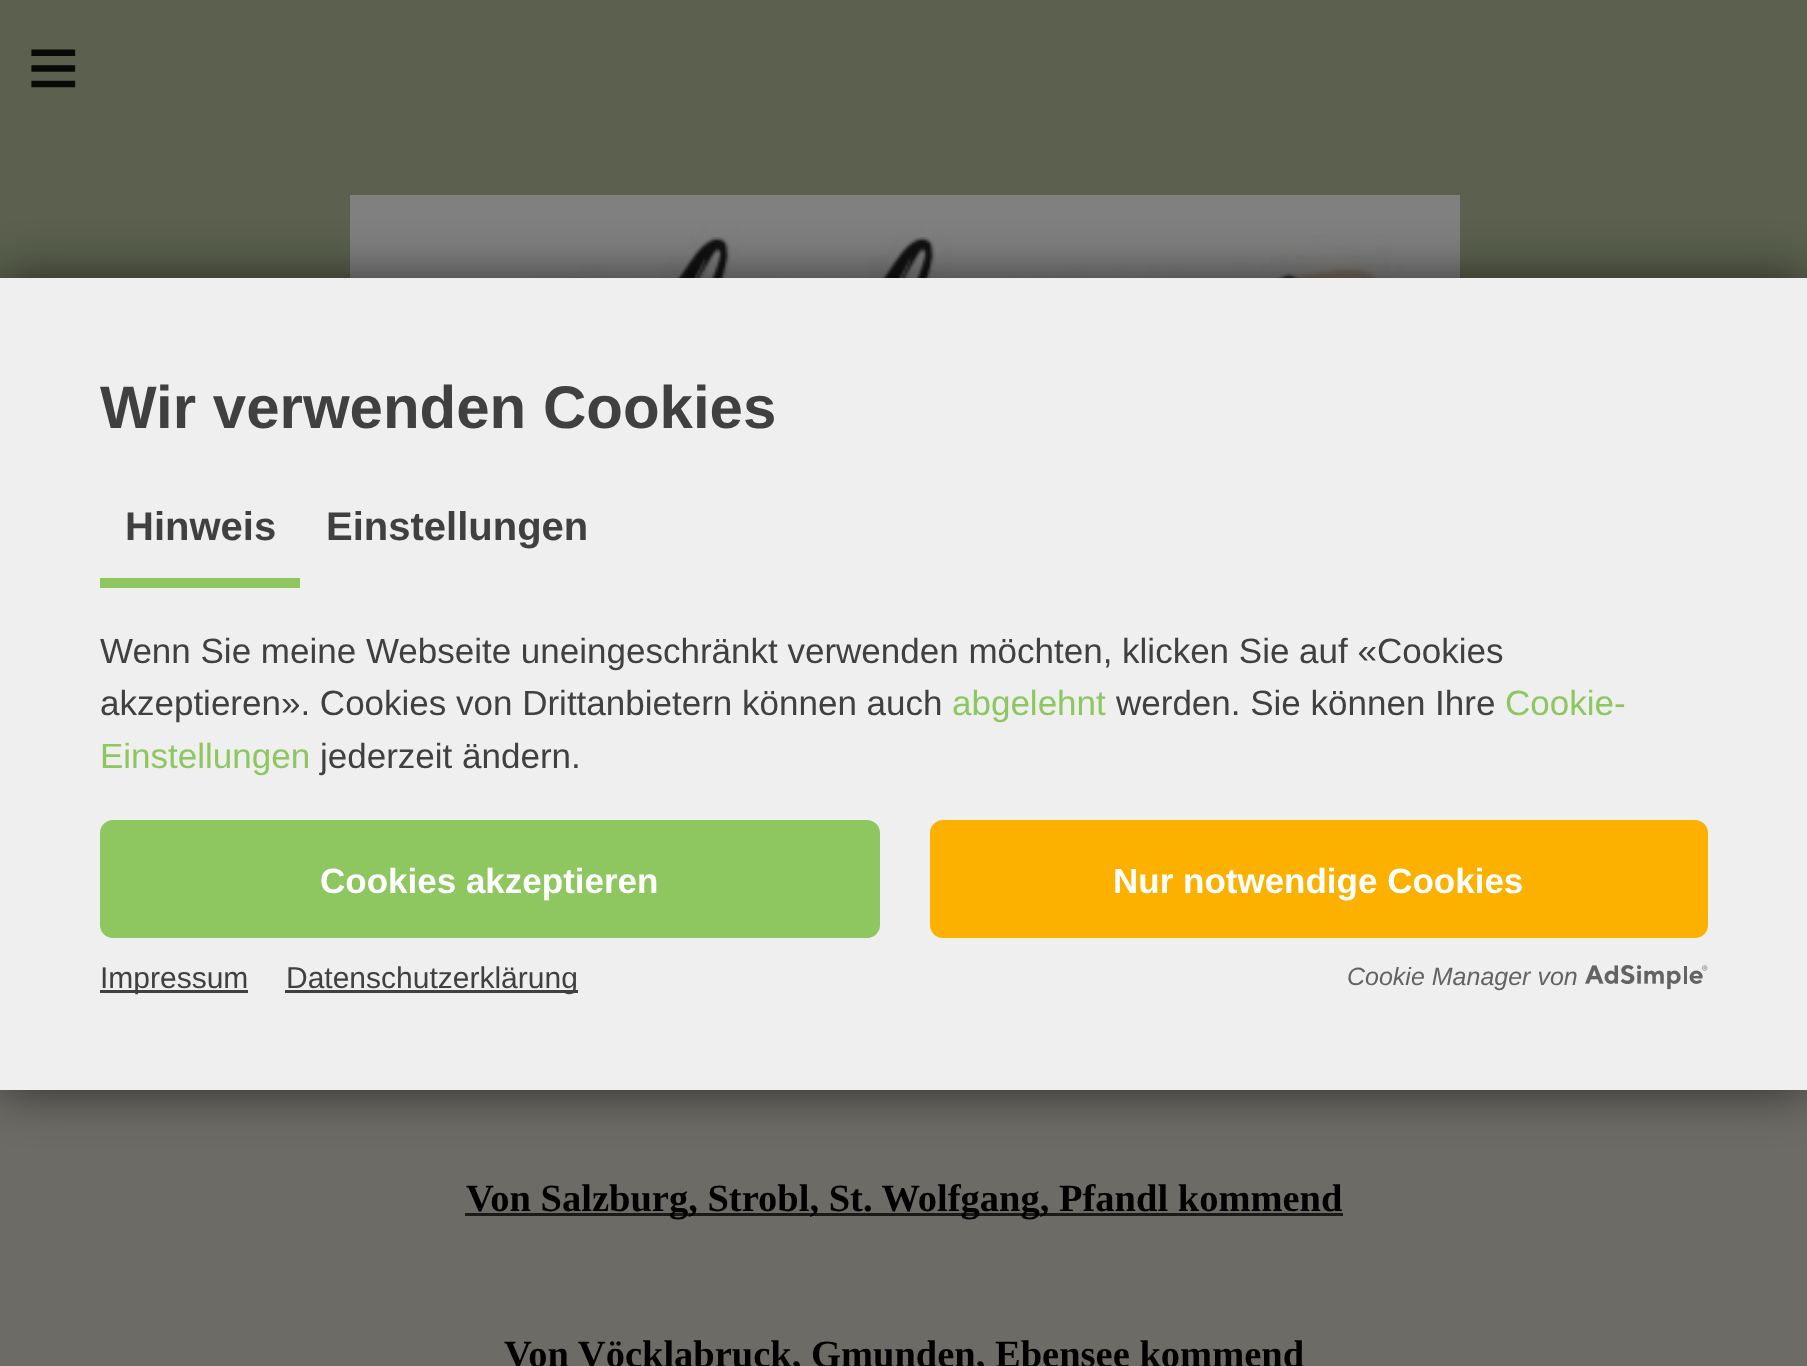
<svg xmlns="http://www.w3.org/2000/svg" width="1807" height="1366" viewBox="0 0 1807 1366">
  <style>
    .t1 { font: 90px Liberation Sans; letter-spacing: 26px; fill: #090a08; }
    .t2 { font: bold 38.5px Liberation Serif; fill: #000; }
    .t3 { font: bold 60px Liberation Sans; fill: #404040; }
    .t4 { font: bold 40px Liberation Sans; fill: #404040; }
    .t5 { font: 35px Liberation Sans; fill: #404040; }
    .t6 { font: 35px Liberation Sans; fill: #8ec760; }
    .t7 { font: bold 35px Liberation Sans; fill: #fff; }
    .t8 { font: 30px Liberation Sans; fill: #404040; }
    .t9 { font: italic 25px Liberation Sans; fill: #636363; }
  </style>
  <rect width="100%" height="100%" fill="#5b614e"/>
  <text x="27" y="98" class="t1">≡</text>
  <image x="350" y="195" width="1110" height="83" href="images/1.png"/>
  <rect x="0" y="1090" width="1807" height="276" fill="#6d6b66"/>
  <rect x="465" y="1213" width="878" height="3" fill="#1c1a17"/>
  <text x="466" y="1211" class="t2">Von Salzburg, Strobl, St. Wolfgang, Pfandl kommend</text>
  <text x="504" y="1367" class="t2">Von Vöcklabruck, Gmunden, Ebensee kommend</text>
  <rect x="0" y="278" width="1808" height="812" fill="#00000099" filter="blur(25px)"/>
  <rect x="0" y="278" width="1807" height="812" fill="#efefef"/>
  <text x="100" y="428" class="t3">Wir verwenden Cookies</text>
  <rect x="100" y="578" width="200" height="10" fill="#8ec760"/>
  <text x="125" y="540" class="t4">Hinweis</text>
  <text x="326" y="540" class="t4">Einstellungen</text>
  <text x="100" y="663" class="t5">Wenn Sie meine Webseite uneingeschränkt verwenden möchten, klicken Sie auf «Cookies</text>
  <text x="100" y="715" class="t5">akzeptieren». Cookies von Drittanbietern können auch</text>
  <text x="952" y="715" class="t6">abgelehnt</text>
  <text x="1116" y="715" class="t5">werden. Sie können Ihre</text>
  <text x="1505" y="715" class="t6">Cookie-</text>
  <text x="100" y="768" class="t6">Einstellungen</text>
  <text x="320" y="768" class="t5">jederzeit ändern.</text>
  <rect x="102.5" y="822.5" width="775" height="113" rx="10.5" fill="#8ec760" stroke="#8ec760" stroke-width="5"/>
  <text x="320" y="893" class="t7">Cookies akzeptieren</text>
  <rect x="932.5" y="822.5" width="773" height="113" rx="10.5" fill="#fcb100" stroke="#fcb100" stroke-width="5"/>
  <text x="1113" y="893" class="t7">Nur notwendige Cookies</text>
  <rect x="100" y="990" width="148" height="3" fill="#404040"/>
  <text x="100" y="988" class="t8">Impressum</text>
  <rect x="285" y="990" width="293" height="3" fill="#404040"/>
  <text x="286" y="988" class="t8">Datenschutzerklärung</text>
  <text x="1347" y="985" class="t9">Cookie Manager von</text>
  <image x="1585" y="965" width="123" height="25" href="images/2.png"/>
</svg>
